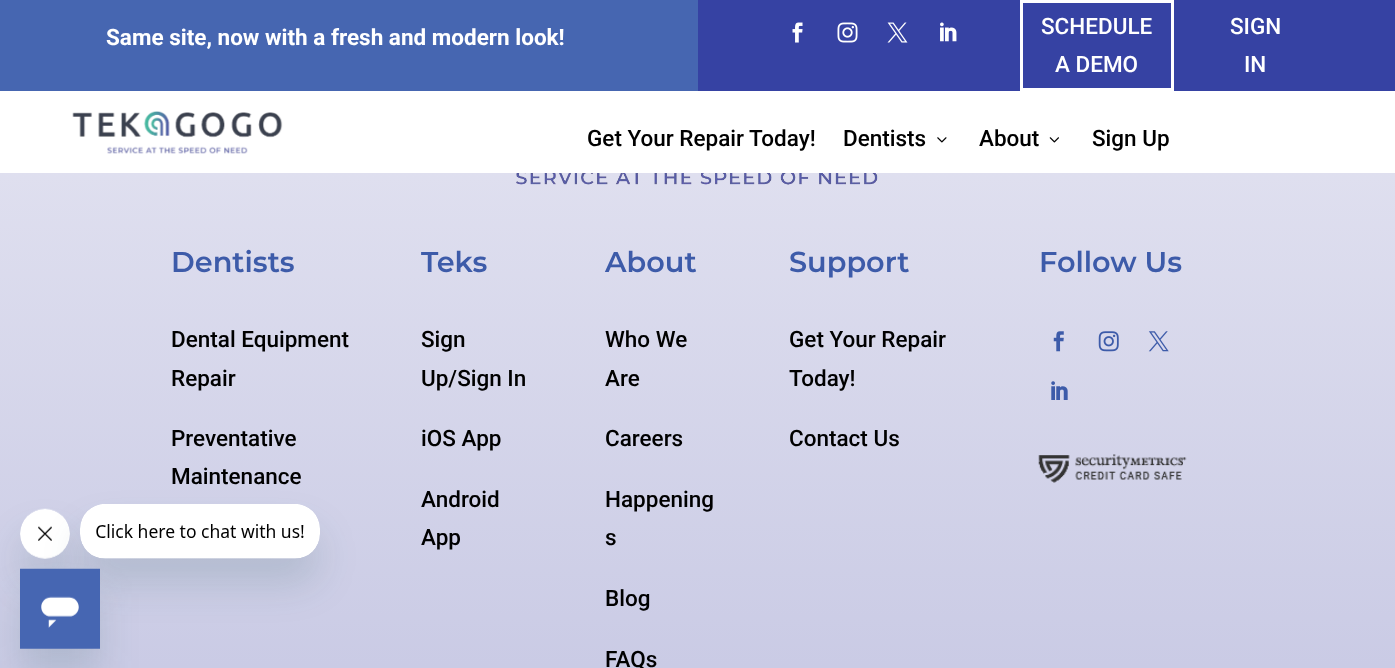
<svg xmlns="http://www.w3.org/2000/svg" width="1395" height="668" viewBox="0 0 1395 668">
  <style>
    .t1 { font: bold 22.5px Roboto; fill: #fff; }
    .t2 { font: 500 22.5px Roboto; fill: #fff; }
    .t3 { font: 500 22.5px Roboto; fill: #000; }
    .t4 { font: 600 28.75px Montserrat; fill: #3d5ba9; }
  </style>
  <defs>
    <linearGradient id="g1" gradientUnits="userSpaceOnUse" x1="698" y1="-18" x2="698" y2="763"><stop offset="0" stop-color="#e7e7f3"/><stop offset="1" stop-color="#c6c7e3"/></linearGradient>
  </defs>
  <rect width="100%" height="100%" fill="#fff"/>
  <rect x="698" y="0" width="697" height="91" fill="#3642a3"/>
  <image x="792" y="22" width="11" height="21" href="images/1.png"/>
  <image x="837" y="22" width="21" height="21" href="images/2.png"/>
  <image x="887" y="22" width="21" height="21" href="images/3.png"/>
  <image x="940" y="22" width="17" height="20" href="images/4.png"/>
  <rect x="0" y="0" width="698" height="91" fill="#4666b1"/>
  <text x="106" y="45" class="t1">Same site, now with a fresh and modern look!</text>
  <rect x="1021.5" y="1.5" width="151" height="88" fill="none" stroke="#fff" stroke-width="3"/>
  <text x="1041" y="34" class="t2">SCHEDULE</text>
  <text x="1055" y="72" class="t2">A DEMO</text>
  <text x="1230" y="34" class="t2">SIGN</text>
  <text x="1244" y="72" class="t2">IN</text>
  <image x="72" y="111" width="211" height="43" href="images/5.png"/>
  <text x="587" y="146" class="t3">Get Your Repair Today!</text>
  <text x="843" y="146" class="t3">Dentists</text>
  <image x="937" y="137" width="10" height="6" href="images/6.png"/>
  <text x="979" y="146" class="t3">About</text>
  <image x="1049" y="137" width="10" height="6" href="images/7.png"/>
  <text x="1092" y="146" class="t3">Sign Up</text>
  <rect x="0" y="173" width="1395" height="495" fill="url(#g1)"/>
  <image x="516" y="173" width="362" height="12" href="images/8.png"/>
  <text x="171" y="272" class="t4">Dentists</text>
  <text x="171" y="347" class="t3">Dental Equipment</text>
  <text x="171" y="386" class="t3">Repair</text>
  <text x="171" y="446" class="t3">Preventative</text>
  <text x="171" y="484" class="t3">Maintenance</text>
  <text x="421" y="272" class="t4">Teks</text>
  <text x="421" y="347" class="t3">Sign</text>
  <text x="421" y="386" class="t3">Up/Sign In</text>
  <text x="421" y="446" class="t3">iOS App</text>
  <text x="421" y="507" class="t3">Android</text>
  <text x="421" y="545" class="t3">App</text>
  <text x="605" y="272" class="t4">About</text>
  <text x="605" y="347" class="t3">Who We</text>
  <text x="605" y="386" class="t3">Are</text>
  <text x="605" y="446" class="t3">Careers</text>
  <text x="605" y="507" class="t3">Happening</text>
  <text x="605" y="545" class="t3">s</text>
  <text x="605" y="606" class="t3">Blog</text>
  <text x="605" y="667" class="t3">FAQs</text>
  <text x="789" y="272" class="t4">Support</text>
  <text x="789" y="347" class="t3">Get Your Repair</text>
  <text x="789" y="386" class="t3">Today!</text>
  <text x="789" y="446" class="t3">Contact Us</text>
  <text x="1039" y="272" class="t4">Follow Us</text>
  <image x="1053" y="331" width="11" height="21" href="images/9.png"/>
  <image x="1098" y="331" width="21" height="21" href="images/10.png"/>
  <image x="1148" y="331" width="21" height="21" href="images/11.png"/>
  <image x="1051" y="381" width="17" height="19" href="images/12.png"/>
  <image x="1038" y="454" width="149" height="29" href="images/13.png"/>
  <rect x="20" y="534" width="50" height="50" rx="25" fill="#17494d26" filter="blur(19px)"/>
  <image x="20" y="508" width="50" height="51" href="images/15.png"/>
  <rect x="80" y="529" width="240" height="55" rx="25" fill="#17494d26" filter="blur(19px)"/>
  <image x="80" y="504" width="240" height="55" href="images/14.png"/>
  <rect x="20" y="594" width="80" height="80" fill="#17494d26" filter="blur(19px)"/>
  <image x="20" y="568" width="80" height="81" href="images/16.png"/>
</svg>
